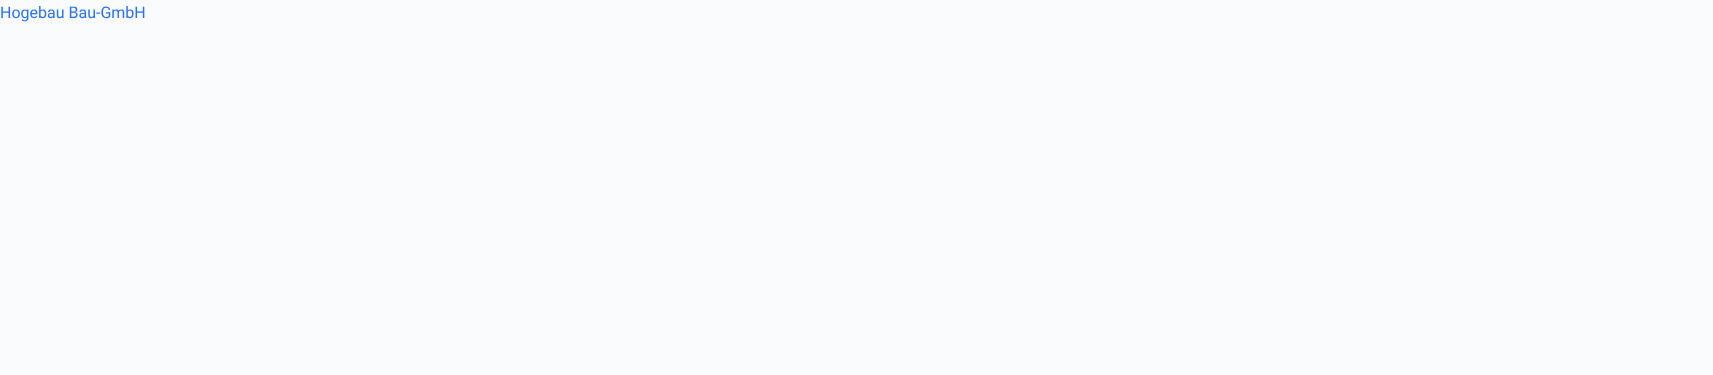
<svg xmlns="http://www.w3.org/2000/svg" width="1713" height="375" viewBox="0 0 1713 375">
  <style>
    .t1 { font: 16px Roboto; fill: #2872fa; }
  </style>
  <rect width="100%" height="100%" fill="#fafbfc"/>
  <text x="0" y="18" class="t1">Hogebau Bau-GmbH</text>
</svg>
